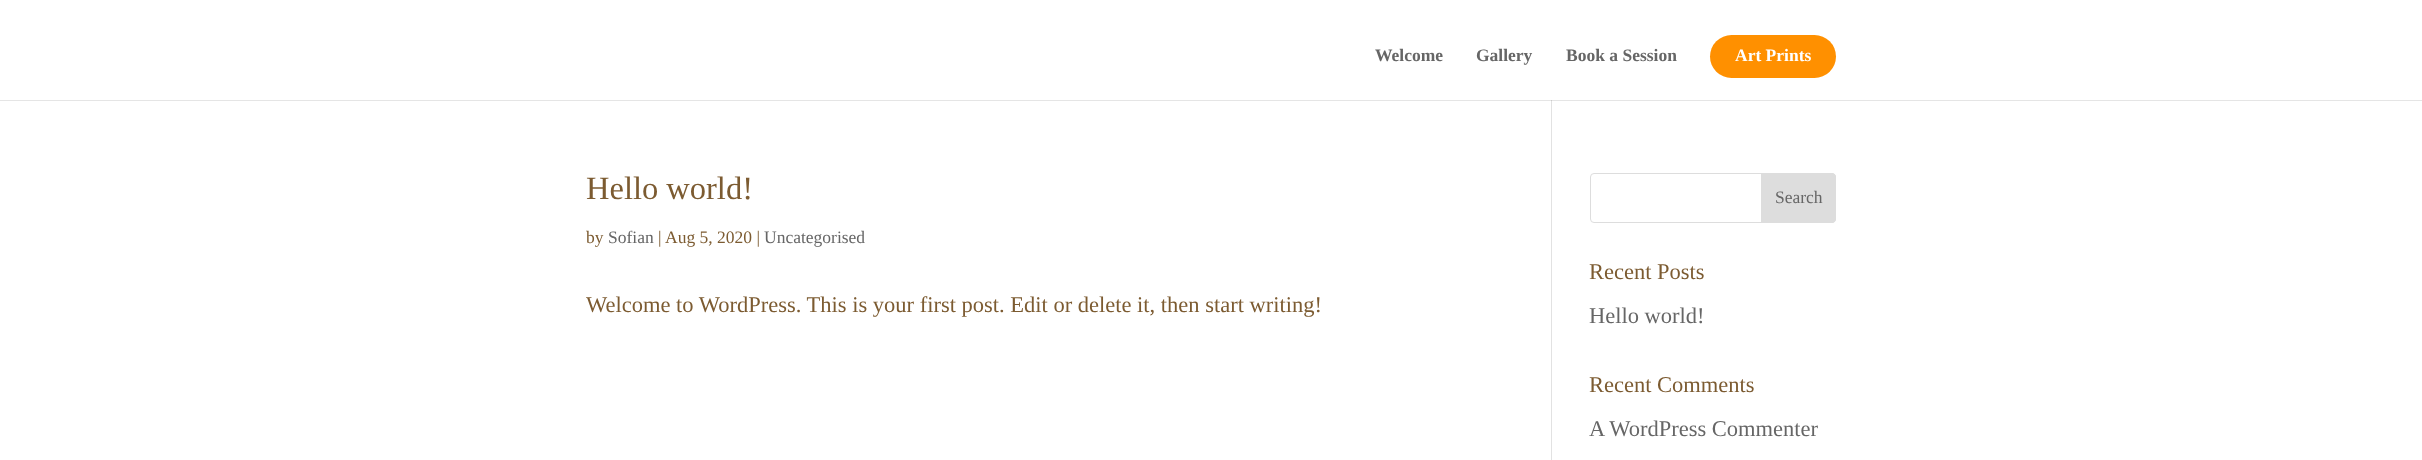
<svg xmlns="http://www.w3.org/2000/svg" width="2422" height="460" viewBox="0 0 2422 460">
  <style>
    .t1 { font: bold 17.5px Liberation Serif; fill: #666; }
    .t2 { font: bold 17.5px Liberation Serif; fill: #fff; }
    .t3 { font: 32.5px Liberation Serif; fill: #7c5b31; }
    .t4 { font: 17.5px Liberation Serif; fill: #7c5b31; }
    .t5 { font: 17.5px Liberation Serif; fill: #666; }
    .t6 { font: 22.5px Liberation Serif; fill: #7c5b31; }
    .t7 { font: 22.5px Liberation Serif; fill: #666; }
  </style>
  <rect width="100%" height="100%" fill="#fff"/>
  <rect x="1551" y="100" width="1" height="360" fill="#e2e2e2"/>
  <path d="M0 100V101H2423V1H2422V100Z" fill="#0000001a"/>
  <text x="1375" y="61" class="t1">Welcome</text>
  <text x="1476" y="61" class="t1">Gallery</text>
  <text x="1566" y="61" class="t1">Book a Session</text>
  <rect x="1710" y="35" width="126" height="43" rx="21.5" fill="#ff9000"/>
  <text x="1735" y="61" class="t2">Art Prints</text>
  <text x="586" y="199" class="t3">Hello world!</text>
  <text x="586" y="243" class="t4">by</text>
  <text x="608" y="243" class="t5">Sofian</text>
  <text x="658" y="243" class="t4">|</text>
  <text x="665" y="243" class="t4">Aug 5, 2020 |</text>
  <text x="764" y="243" class="t5">Uncategorised</text>
  <text x="586" y="312" class="t6">Welcome to WordPress. This is your first post. Edit or delete it, then start writing!</text>
  <rect x="1590.5" y="173.5" width="245" height="49" rx="3.5" fill="none" stroke="#ddd"/>
  <path d="M1761.5 173.5H1832C1834 173.5 1835.5 175 1835.5 177V219C1835.5 221 1834 222.5 1832 222.5H1761.5Z" fill="#ddd" stroke="#ddd"/>
  <text x="1775" y="203" class="t5">Search</text>
  <text x="1589" y="279" class="t6">Recent Posts</text>
  <text x="1589" y="323" class="t7">Hello world!</text>
  <text x="1589" y="392" class="t6">Recent Comments</text>
  <text x="1589" y="436" class="t7">A WordPress Commenter</text>
</svg>
